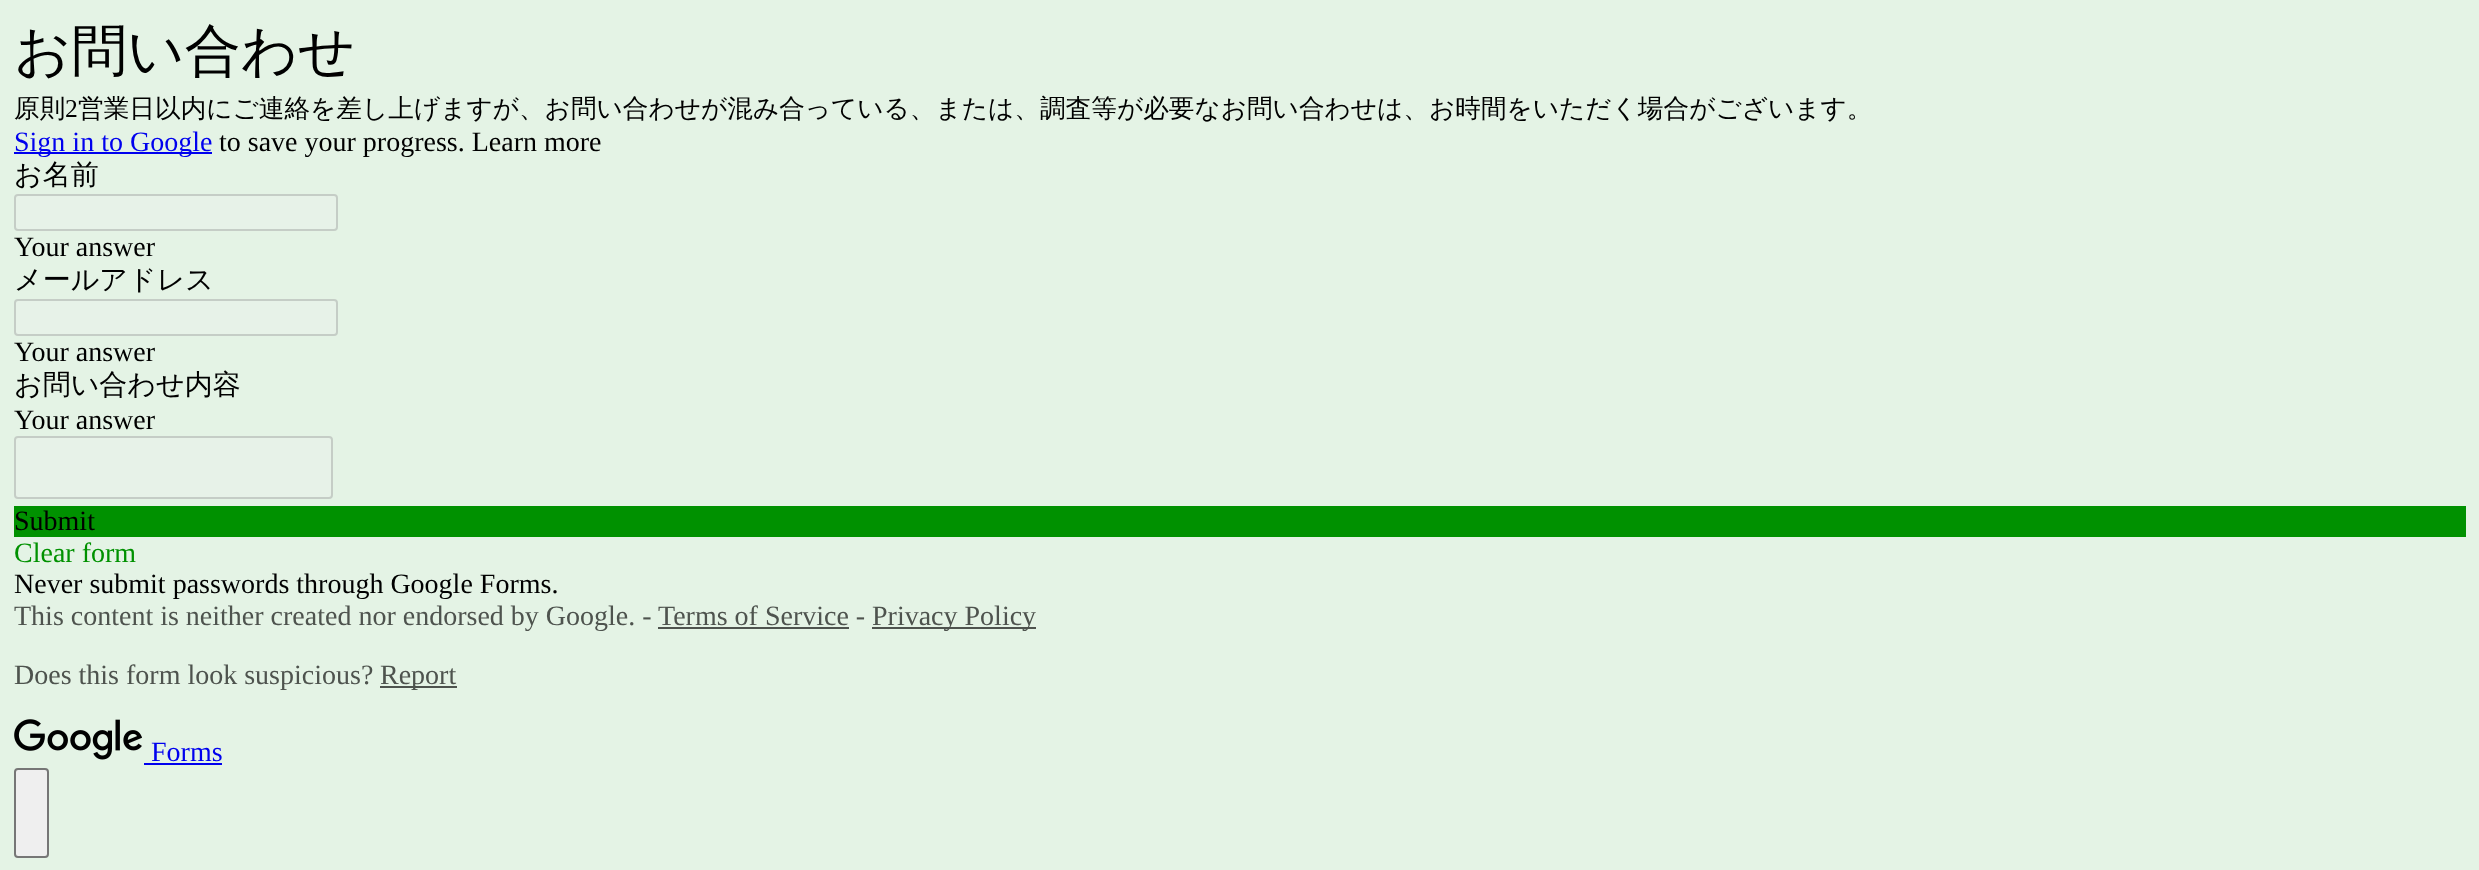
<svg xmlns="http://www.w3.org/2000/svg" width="2479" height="870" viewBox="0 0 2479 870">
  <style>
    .t1 { font: 500 56px WenQuanYi Zen Hei; fill: #000; }
    .t2 { font: 500 25.67px WenQuanYi Zen Hei; fill: #000; }
    .t3 { font: 25.67px Liberation Serif; fill: #000; }
    .t4 { font: 28px Liberation Serif; fill: #00e; }
    .t5 { font: 28px Liberation Serif; fill: #000; }
    .t6 { font: 500 28px WenQuanYi Zen Hei; fill: #000; }
    .t7 { font: 28px Liberation Serif; fill: #009100; }
    .t8 { font: 28px Liberation Serif; fill: #4e534e; }
  </style>
  <rect width="100%" height="100%" fill="#e4f3e5"/>
  <text x="14" y="70" class="t1">お問い合わせ</text>
  <text x="14" y="117" class="t2">原則</text>
  <text x="65" y="117" class="t3">2</text>
  <text x="78" y="117" class="t2">営業日以内にご連絡を差し上げますが、お問い合わせが混み合っている、または、調査等が必要なお問い合わせは、お時間をいただく場合がございます。</text>
  <rect x="14" y="152" width="198" height="2" fill="#00e"/>
  <text x="14" y="151" class="t4">Sign in to Google</text>
  <text x="219" y="151" class="t5">to save your progress. Learn more</text>
  <text x="14" y="184" class="t6">お名前</text>
  <rect x="15" y="195" width="322" height="35" rx="3" fill="#e7f2e8" stroke="#c5cdc6" stroke-width="2"/>
  <text x="14" y="256" class="t5">Your answer</text>
  <text x="14" y="289" class="t6">メールアドレス</text>
  <rect x="15" y="300" width="322" height="35" rx="3" fill="#e7f2e8" stroke="#c5cdc6" stroke-width="2"/>
  <text x="14" y="361" class="t5">Your answer</text>
  <text x="14" y="394" class="t6">お問い合わせ内容</text>
  <text x="14" y="429" class="t5">Your answer</text>
  <rect x="15" y="437" width="317" height="61" rx="3" fill="#e7f2e8" stroke="#c5cdc6" stroke-width="2"/>
  <rect x="14" y="506" width="2452" height="31" fill="#009100"/>
  <text x="14" y="530" class="t5">Submit</text>
  <text x="14" y="562" class="t7">Clear form</text>
  <text x="14" y="593" class="t5">Never submit passwords through Google Forms.</text>
  <text x="14" y="625" class="t8">This content is neither created nor endorsed by Google. -</text>
  <text x="658" y="625" class="t8">Terms of Service -</text>
  <rect x="658" y="627" width="191" height="2" fill="#4e534e"/>
  <rect x="872" y="627" width="164" height="2" fill="#4e534e"/>
  <text x="872" y="625" class="t8">Privacy Policy</text>
  <text x="14" y="684" class="t8">Does this form look suspicious?</text>
  <rect x="380" y="686" width="77" height="2" fill="#4e534e"/>
  <text x="380" y="684" class="t8">Report</text>
  <image x="14" y="719" width="128" height="41" href="images/1.png"/>
  <text x="151" y="761" class="t4">Forms</text>
  <rect x="144" y="763" width="78" height="2" fill="#00e"/>
  <rect x="15" y="769" width="33" height="88" rx="3" fill="#efefef" stroke="#767676" stroke-width="2"/>
</svg>
